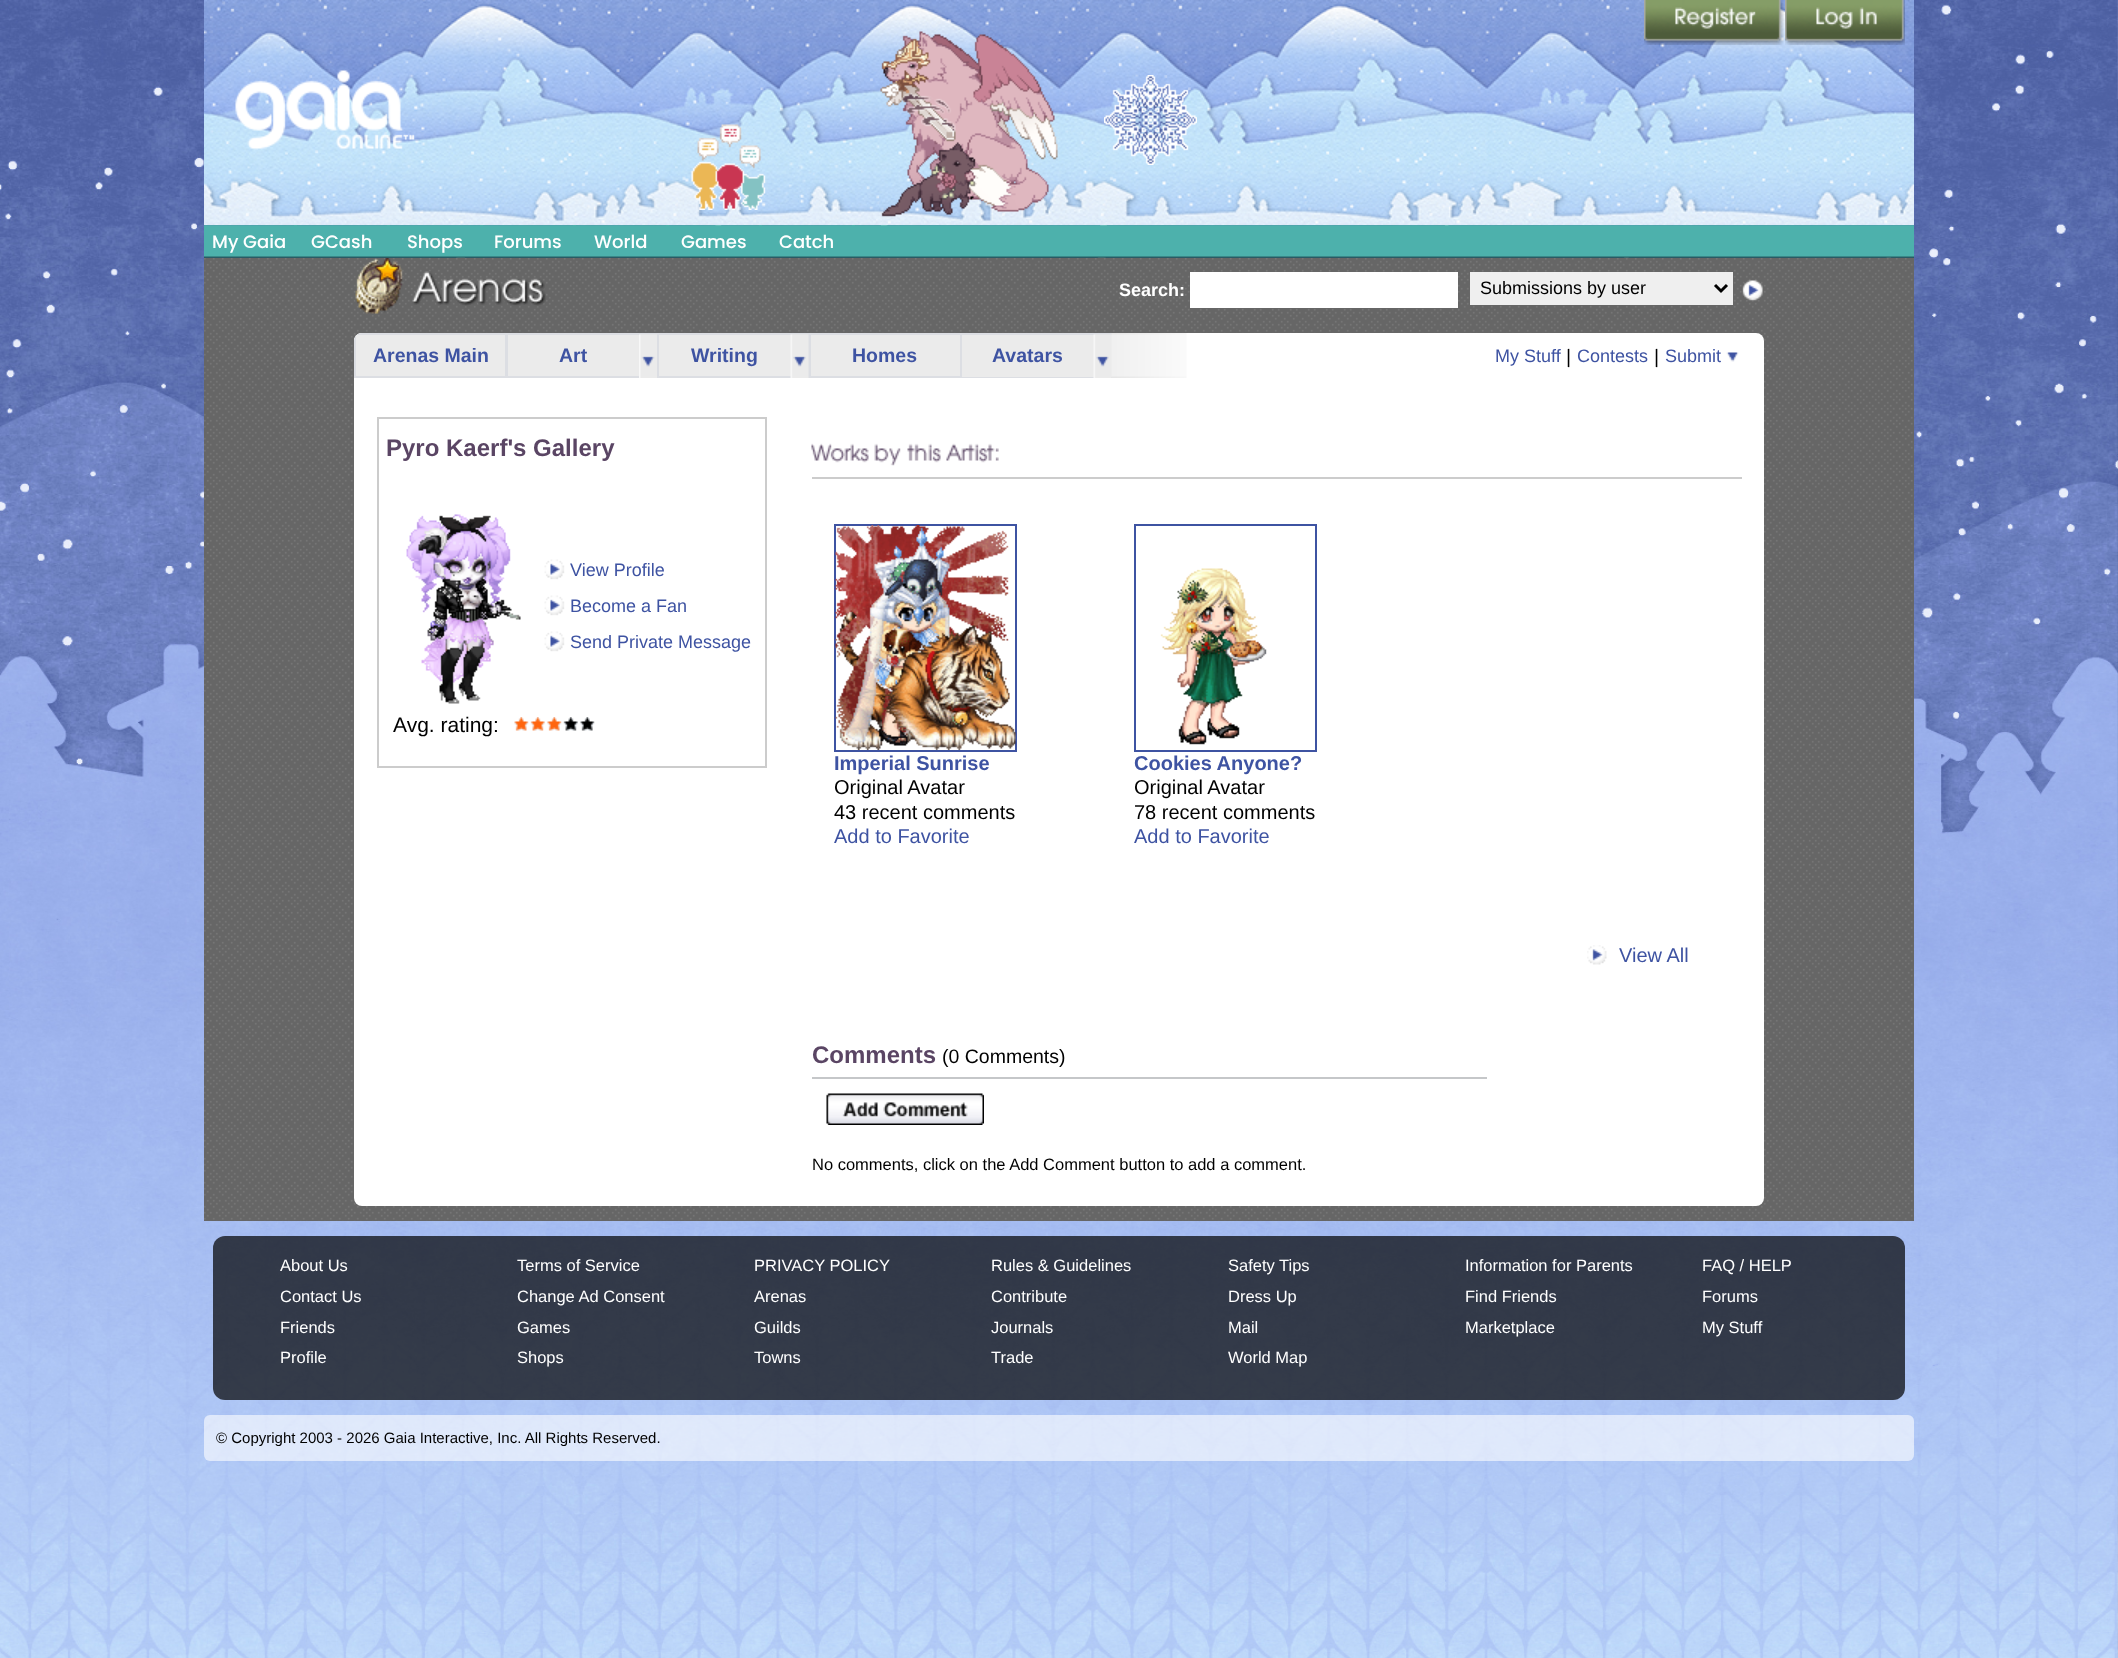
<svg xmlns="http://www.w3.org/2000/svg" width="2118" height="1658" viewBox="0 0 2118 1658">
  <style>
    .t1 { font: 500 18px Poppins; fill: #fff; }
    .t2 { font: bold 18px Liberation Sans; fill: #fff; }
    .t3 { font: 18px Liberation Sans; fill: #000; }
    .t4 { font: bold 19.5px Liberation Sans; fill: #3e53a2; }
    .t5 { font: 18px Liberation Sans; fill: #3e53a2; }
    .t6 { font: 19.5px Liberation Sans; fill: #000; }
    .t7 { font: bold 24px Liberation Sans; fill: #5a4564; }
    .t8 { font: 21px Liberation Sans; fill: #000; }
    .t9 { font: bold 20px Liberation Sans; fill: #3e53a2; }
    .t10 { font: 20px Liberation Sans; fill: #000; }
    .t11 { font: 20px Liberation Sans; fill: #3e53a2; }
    .t12 { font: 16.5px Liberation Sans; fill: #000; }
    .t13 { font: 16.5px Liberation Sans; fill: #fff; }
    .t14 { font: 15px Liberation Sans; fill: #000; }
  </style>
  <rect width="100%" height="100%" fill="#fff"/>
  <image x="2117" y="99" width="1" height="1559" href="images/1.png"/>
  <image x="0" y="0" width="2118" height="1658" href="images/2.png"/>
  <image x="204" y="0" width="1710" height="225" href="images/3.png"/>
  <image x="204" y="0" width="1710" height="225" href="images/4.png"/>
  <image x="1644" y="0" width="140" height="45" href="images/5.png"/>
  <image x="1785" y="0" width="120" height="45" href="images/6.png"/>
  <image x="235" y="69" width="180" height="81" href="images/7.png"/>
  <image x="691" y="124" width="75" height="86" href="images/8.png"/>
  <image x="880" y="31" width="178" height="186" href="images/9.png"/>
  <image x="1104" y="75" width="93" height="90" href="images/10.png"/>
  <image x="204" y="225" width="1710" height="33" href="images/11.png"/>
  <text x="212" y="248" class="t1">My Gaia</text>
  <image x="294" y="225" width="3" height="33" href="images/12.png"/>
  <text x="311" y="248" class="t1">GCash</text>
  <image x="387" y="225" width="3" height="33" href="images/12.png"/>
  <text x="407" y="248" class="t1">Shops</text>
  <image x="480" y="225" width="3" height="33" href="images/12.png"/>
  <text x="494" y="248" class="t1">Forums</text>
  <image x="573" y="225" width="3" height="33" href="images/12.png"/>
  <text x="594" y="248" class="t1">World</text>
  <image x="666" y="225" width="3" height="33" href="images/12.png"/>
  <text x="681" y="248" class="t1">Games</text>
  <image x="759" y="225" width="3" height="33" href="images/12.png"/>
  <text x="779" y="248" class="t1">Catch</text>
  <image x="852" y="225" width="3" height="33" href="images/12.png"/>
  <image x="204" y="258" width="1710" height="963" href="images/13.png"/>
  <image x="355" y="258" width="191" height="56" href="images/14.png"/>
  <text x="1119" y="296" class="t2">Search:</text>
  <rect x="1190" y="272" width="268" height="36" fill="#fff"/>
  <rect x="1470" y="272" width="263" height="33" fill="#efefef"/>
  <path d="M1715 285L1721 291L1727 285" fill="none" stroke="#000" stroke-width="3"/>
  <text x="1480" y="294" class="t3">Submissions by user</text>
  <image x="1742" y="280" width="21" height="21" href="images/15.png"/>
  <rect x="354" y="333" width="1410" height="873" rx="8" fill="#fff"/>
  <path d="M362 333H507V378H354V341C354 336.5 357.5 333 362 333Z" fill="#ebebeb"/>
  <path d="M362 333C360 333 358 334 357 335H505V376H356V336C355 337 354 339 354 341V378H507V333Z" fill="#dcdee3"/>
  <text x="373" y="362" class="t4">Arenas Main</text>
  <rect x="508" y="335" width="131" height="41" fill="#ebebeb"/>
  <rect x="507" y="334" width="151" height="43" fill="none" stroke="#dcdee3" stroke-width="2"/>
  <text x="559" y="362" class="t4">Art</text>
  <image x="639" y="334" width="18" height="44" href="images/16.png"/>
  <rect x="659" y="335" width="132" height="41" fill="#ebebeb"/>
  <rect x="658" y="334" width="151" height="43" fill="none" stroke="#dcdee3" stroke-width="2"/>
  <text x="691" y="362" class="t4">Writing</text>
  <image x="790" y="334" width="19" height="44" href="images/17.png"/>
  <rect x="810" y="334" width="151" height="43" fill="#ebebeb" stroke="#dcdee3" stroke-width="2"/>
  <text x="852" y="362" class="t4">Homes</text>
  <rect x="962" y="335" width="150" height="42" fill="#ebebeb"/>
  <rect x="960" y="333" width="152" height="2" fill="#dcdee3"/>
  <rect x="960" y="377" width="152" height="1" fill="#dcdee3"/>
  <text x="992" y="362" class="t4">Avatars</text>
  <image x="1093" y="334" width="19" height="44" href="images/18.png"/>
  <image x="1111" y="333" width="76" height="45" href="images/19.png"/>
  <text x="1495" y="362" class="t5">My Stuff</text>
  <text x="1566" y="363" class="t6">|</text>
  <text x="1577" y="362" class="t5">Contests</text>
  <text x="1654" y="363" class="t6">|</text>
  <text x="1665" y="362" class="t5">Submit</text>
  <image x="1726" y="352" width="13" height="10" href="images/20.png"/>
  <rect x="378" y="418" width="388" height="349" fill="none" stroke="#ccc" stroke-width="2"/>
  <text x="386" y="456" class="t7">Pyro Kaerf's Gallery</text>
  <image x="406" y="514" width="115" height="190" href="images/21.png"/>
  <image x="544" y="559" width="21" height="21" href="images/22.png"/>
  <text x="570" y="576" class="t5">View Profile</text>
  <image x="544" y="595" width="21" height="21" href="images/22.png"/>
  <text x="570" y="612" class="t5">Become a Fan</text>
  <image x="544" y="631" width="21" height="21" href="images/22.png"/>
  <text x="570" y="648" class="t5">Send Private Message</text>
  <text x="393" y="732" class="t8">Avg. rating:</text>
  <image x="514" y="717" width="15" height="14" href="images/23.png"/>
  <image x="530" y="717" width="15" height="14" href="images/24.png"/>
  <image x="547" y="717" width="15" height="14" href="images/25.png"/>
  <image x="563" y="717" width="15" height="14" href="images/26.png"/>
  <image x="580" y="717" width="15" height="14" href="images/27.png"/>
  <rect x="812" y="477" width="930" height="2" fill="#ccc"/>
  <image x="811" y="443" width="188" height="23" href="images/28.png"/>
  <rect x="835" y="525" width="181" height="226" fill="none" stroke="#3e53a2" stroke-width="2"/>
  <image x="835" y="525" width="181" height="225" href="images/29.png"/>
  <text x="834" y="770" class="t9">Imperial Sunrise</text>
  <text x="834" y="794" class="t10">Original Avatar</text>
  <text x="834" y="819" class="t10">43 recent comments</text>
  <text x="834" y="843" class="t11">Add to Favorite</text>
  <rect x="1135" y="525" width="181" height="226" fill="none" stroke="#3e53a2" stroke-width="2"/>
  <image x="1160" y="568" width="107" height="177" href="images/30.png"/>
  <text x="1134" y="770" class="t9">Cookies Anyone?</text>
  <text x="1134" y="794" class="t10">Original Avatar</text>
  <text x="1134" y="819" class="t10">78 recent comments</text>
  <text x="1134" y="843" class="t11">Add to Favorite</text>
  <image x="1587" y="945" width="20" height="20" href="images/31.png"/>
  <text x="1619" y="962" class="t11">View All</text>
  <text x="812" y="1063" class="t7">Comments</text>
  <text x="942" y="1063" class="t6">(0 Comments)</text>
  <rect x="812" y="1077" width="675" height="2" fill="#c5c7c9"/>
  <image x="826" y="1093" width="158" height="32" href="images/32.png"/>
  <text x="812" y="1170" class="t12">No comments, click on the Add Comment button to add a comment.</text>
  <rect x="213" y="1236" width="1692" height="164" rx="12" fill="#000000b3"/>
  <text x="280" y="1271" class="t13">About Us</text>
  <text x="517" y="1271" class="t13">Terms of Service</text>
  <text x="754" y="1271" class="t13">PRIVACY POLICY</text>
  <text x="991" y="1271" class="t13">Rules &amp; Guidelines</text>
  <text x="1228" y="1271" class="t13">Safety Tips</text>
  <text x="1465" y="1271" class="t13">Information for Parents</text>
  <text x="1702" y="1271" class="t13">FAQ / HELP</text>
  <text x="280" y="1302" class="t13">Contact Us</text>
  <text x="517" y="1302" class="t13">Change Ad Consent</text>
  <text x="754" y="1302" class="t13">Arenas</text>
  <text x="991" y="1302" class="t13">Contribute</text>
  <text x="1228" y="1302" class="t13">Dress Up</text>
  <text x="1465" y="1302" class="t13">Find Friends</text>
  <text x="1702" y="1302" class="t13">Forums</text>
  <text x="280" y="1333" class="t13">Friends</text>
  <text x="517" y="1333" class="t13">Games</text>
  <text x="754" y="1333" class="t13">Guilds</text>
  <text x="991" y="1333" class="t13">Journals</text>
  <text x="1228" y="1333" class="t13">Mail</text>
  <text x="1465" y="1333" class="t13">Marketplace</text>
  <text x="1702" y="1333" class="t13">My Stuff</text>
  <text x="280" y="1363" class="t13">Profile</text>
  <text x="517" y="1363" class="t13">Shops</text>
  <text x="754" y="1363" class="t13">Towns</text>
  <text x="991" y="1363" class="t13">Trade</text>
  <text x="1228" y="1363" class="t13">World Map</text>
  <rect x="204" y="1415" width="1710" height="46" rx="6" fill="#ffffff99"/>
  <text x="216" y="1443" class="t14">© Copyright 2003 - 2026 Gaia Interactive, Inc. All Rights Reserved.</text>
</svg>
